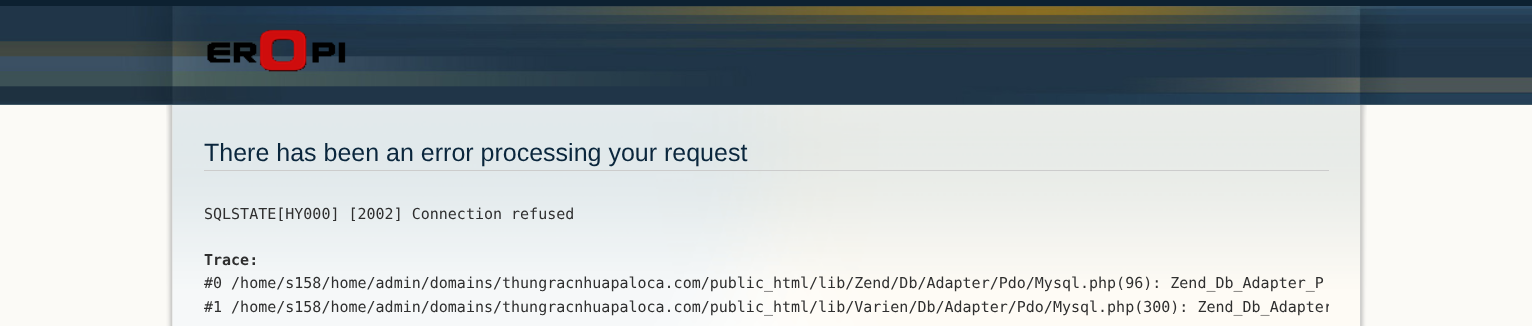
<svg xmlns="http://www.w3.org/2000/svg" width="1532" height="326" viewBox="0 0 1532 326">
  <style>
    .t1 { font: 25px Liberation Sans; fill: #0a263c; }
    .t2 { font: 15px DejaVu Sans Mono; fill: #2f2f2f; }
    .t3 { font: bold 15px DejaVu Sans Mono; fill: #2f2f2f; }
  </style>
  <defs>
    <clipPath id="clip1"><rect x="204" y="203" width="1125" height="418"/></clipPath>
  </defs>
  <rect width="100%" height="100%" fill="#fff"/>
  <image x="0" y="6" width="1532" height="98" href="images/1.png"/>
  <rect x="0" y="0" width="1532" height="6" fill="#0d2131"/>
  <rect x="0" y="104" width="1532" height="1" fill="#415966"/>
  <image x="207" y="29" width="139" height="43" href="images/2.png"/>
  <rect x="0" y="105" width="1532" height="221" fill="#fbfaf6"/>
  <image x="166" y="105" width="1201" height="221" href="images/3.png"/>
  <image x="172" y="105" width="1188" height="221" href="images/4.png"/>
  <rect x="204" y="170" width="1125" height="1" fill="#ccc"/>
  <text x="204" y="161" class="t1">There has been an error processing your request</text>
  <text x="204" y="219" class="t2">SQLSTATE[HY000] [2002] Connection refused</text>
  <text x="204" y="265" class="t3">Trace:</text>
  <text x="204" y="288" class="t2">#0 /home/s158/home/admin/domains/thungracnhuapaloca.com/public_html/lib/Zend/Db/Adapter/Pdo/Mysql.php(96): Zend_Db_Adapter_P</text>
  <g clip-path="url(#clip1)">
    <text x="204" y="312" class="t2">#1 /home/s158/home/admin/domains/thungracnhuapaloca.com/public_html/lib/Varien/Db/Adapter/Pdo/Mysql.php(300): Zend_Db_Adapter</text>
  </g>
</svg>
